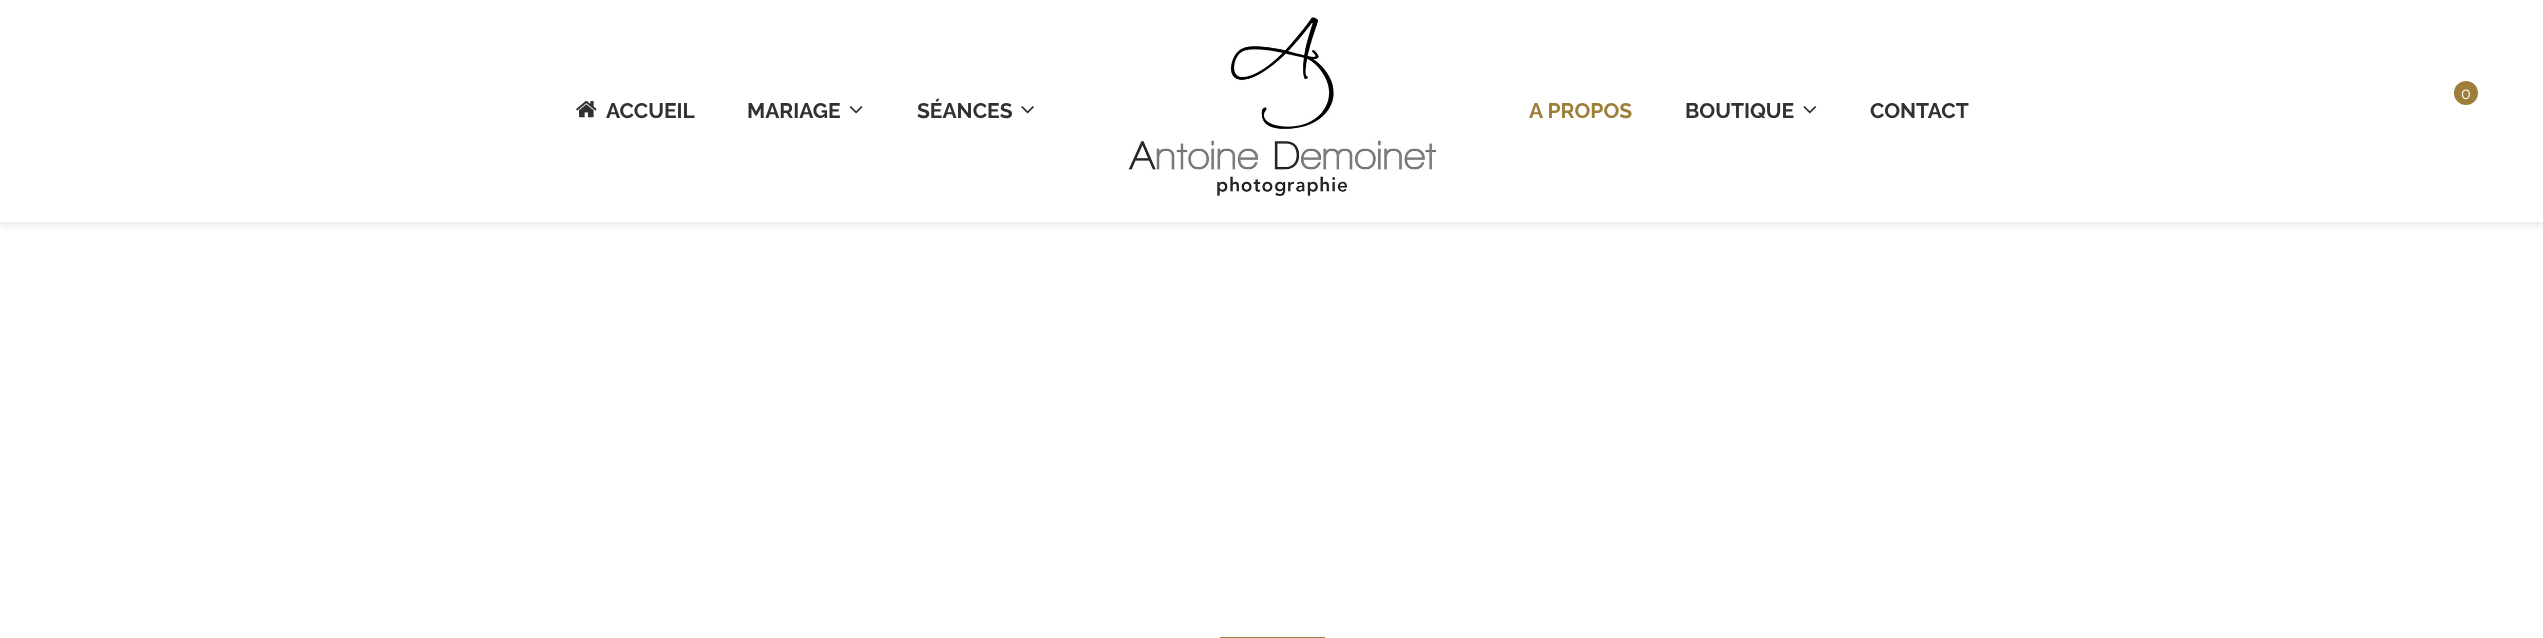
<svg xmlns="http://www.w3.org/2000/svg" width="2543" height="638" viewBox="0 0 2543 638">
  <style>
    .t1 { font: 16px Raleway; fill: #fff; }
    .t2 { font: bold 21px Raleway; fill: #313131; }
    .t3 { font: bold 21px Raleway; fill: #9d7f3b; }
  </style>
  <defs>
    <clipPath id="clip1"><rect x="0" y="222" width="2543" height="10"/></clipPath>
  </defs>
  <rect width="100%" height="100%" fill="#fff"/>
  <g clip-path="url(#clip1)">
    <rect x="0" y="2" width="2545" height="222" fill="#bebebe75" filter="blur(4.5px)"/>
  </g>
  <circle cx="2466" cy="93" r="12" fill="#9d7f3b"/>
  <text x="2461" y="99" class="t1">0</text>
  <image x="576" y="101" width="21" height="17" href="images/1.png"/>
  <text x="606" y="118" class="t2">ACCUEIL</text>
  <text x="747" y="118" class="t2">MARIAGE</text>
  <image x="849" y="106" width="14" height="8" href="images/2.png"/>
  <text x="917" y="118" class="t2">SÉANCES</text>
  <image x="1021" y="106" width="13" height="8" href="images/3.png"/>
  <image x="1128" y="17" width="308" height="179" href="images/4.png"/>
  <text x="1529" y="118" class="t3">A PROPOS</text>
  <text x="1685" y="118" class="t2">BOUTIQUE</text>
  <image x="1803" y="106" width="14" height="8" href="images/5.png"/>
  <text x="1870" y="118" class="t2">CONTACT</text>
  <rect x="1220" y="637" width="105" height="1" fill="#9d7f3b"/>
</svg>
